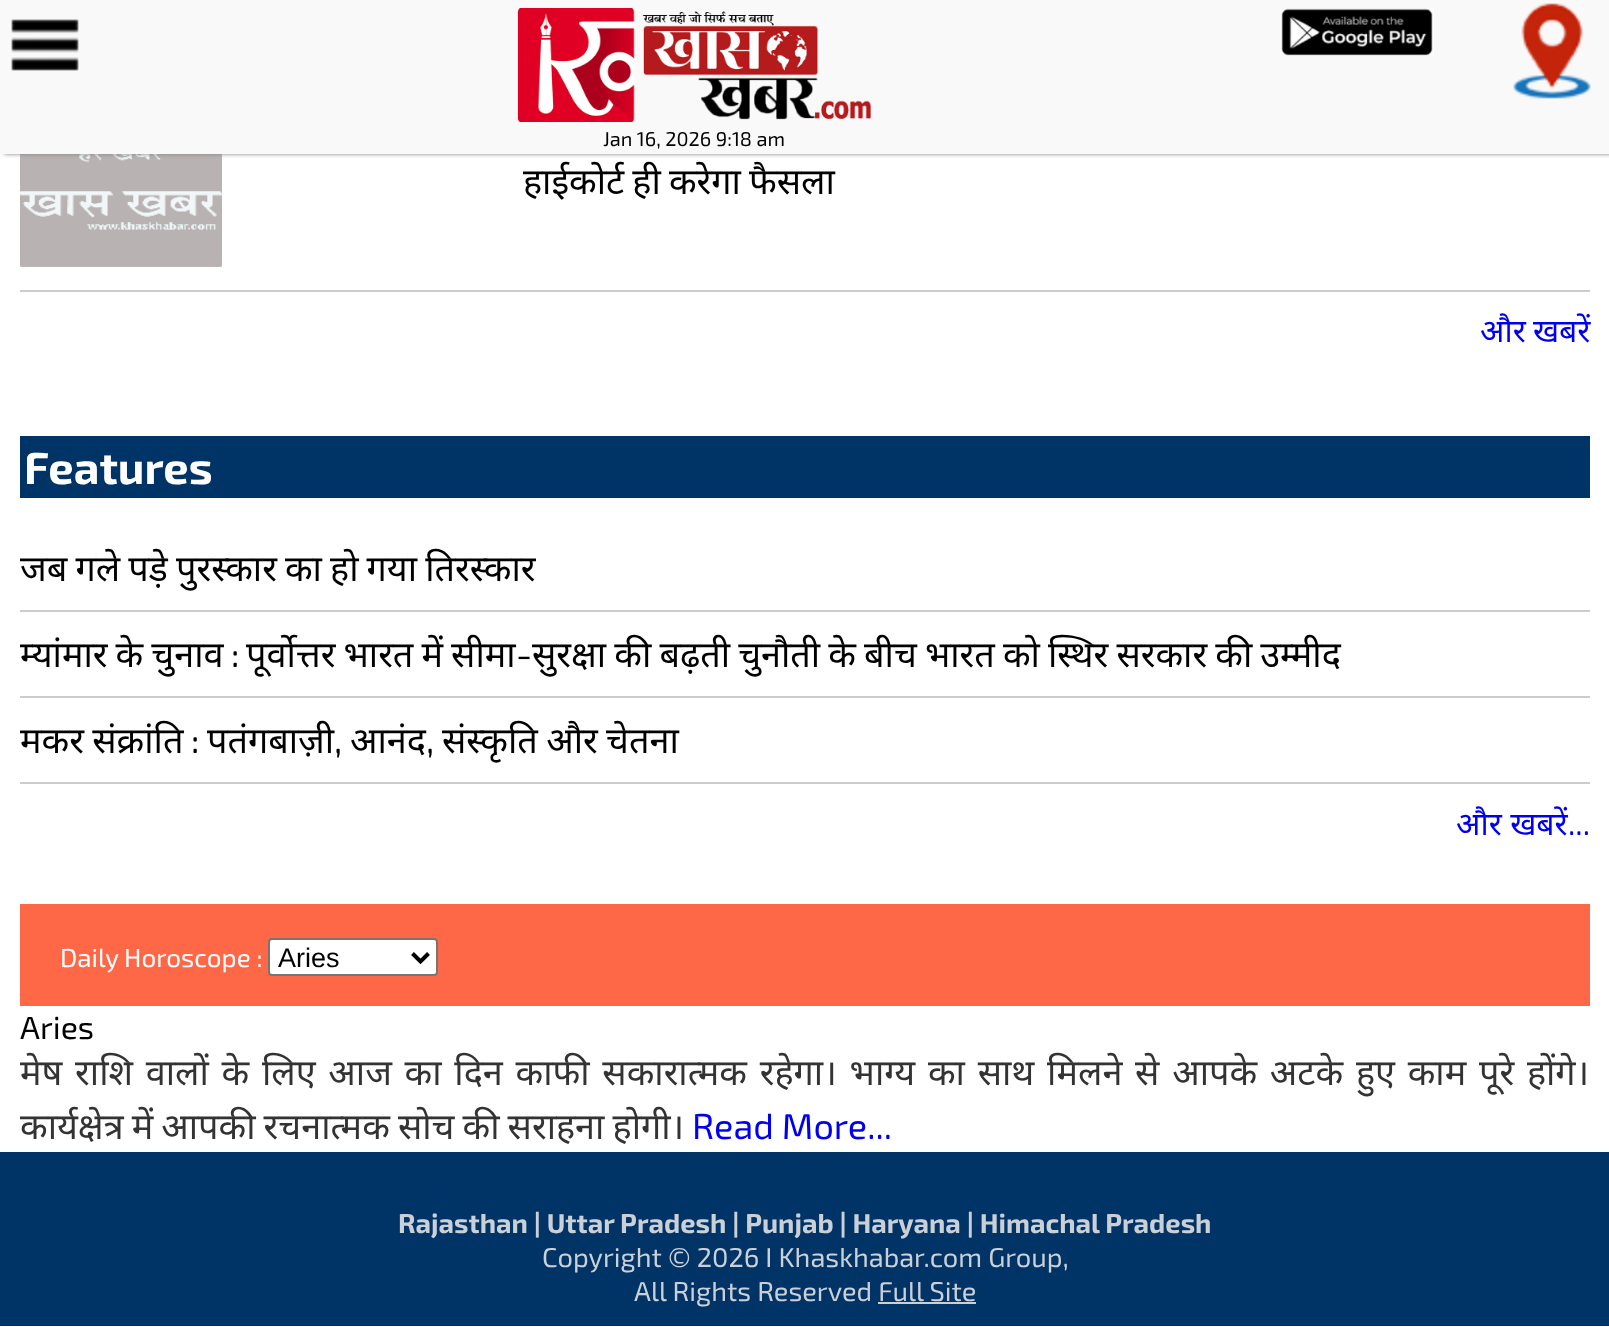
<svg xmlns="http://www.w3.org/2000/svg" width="1609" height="1327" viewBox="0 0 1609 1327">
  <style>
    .t1 { font: 20px 'Exo 2'; fill: #000; }
    .t2 { font: 36px Noto Sans; fill: #000; }
    .t3 { font: 32px Noto Sans; fill: #00e; }
    .t4 { font: bold 45px 'Exo 2'; fill: #fff; }
    .t5 { font: 36px 'Exo 2'; fill: #000; }
    .t6 { font: 32px 'Exo 2'; fill: #00e; }
    .t7 { font: 26px 'Exo 2'; fill: #fff; }
    .t8 { font: 27px Liberation Sans; fill: #000; }
    .t9 { font: 32px 'Exo 2'; fill: #000; }
    .t10 { font: 36px Noto Sans; fill: #333; }
    .t11 { font: 36px 'Exo 2'; fill: #00e; }
    .t12 { font: bold 27.2px 'Exo 2'; fill: #cbd0d7; }
    .t13 { font: 27.2px 'Exo 2'; fill: #cbd0d7; }
  </style>
  <rect width="100%" height="100%" fill="#fff"/>
  <image x="20" y="154" width="202" height="113" href="images/5.png"/>
  <rect x="4" y="0" width="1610" height="154" fill="#808080" filter="blur(2px)"/>
  <rect x="0" y="0" width="1609" height="154" fill="#f9f9f9"/>
  <image x="11" y="19" width="68" height="52" href="images/1.png"/>
  <image x="1280" y="8" width="154" height="48" href="images/2.png"/>
  <image x="1513" y="3" width="78" height="96" href="images/3.png"/>
  <image x="517" y="8" width="355" height="114" href="images/4.png"/>
  <text x="603" y="146" class="t1">Jan 16, 2026 9:18 am</text>
  <rect x="20" y="290" width="1570" height="2" fill="#ccc"/>
  <text x="523" y="194" word-spacing="-1.25" class="t2">हाईकोर्ट ही करेगा फैसला</text>
  <text x="1480" y="342" word-spacing="-1.25" class="t3">और खबरें</text>
  <rect x="20" y="436" width="1570" height="62" fill="#036"/>
  <text x="24" y="484" class="t4">Features</text>
  <rect x="20" y="610" width="1570" height="2" fill="#ccc"/>
  <text x="20" y="581" word-spacing="-1.25" class="t2">जब गले पड़े पुरस्कार का हो गया तिरस्कार</text>
  <rect x="20" y="696" width="1570" height="2" fill="#ccc"/>
  <text x="20" y="667" word-spacing="-1.25" class="t2">म्यांमार के चुनाव</text>
  <text x="231" y="667" class="t5">:</text>
  <text x="246" y="667" word-spacing="-1.25" class="t2">पूर्वोत्तर भारत में सीमा</text>
  <text x="516" y="667" class="t5">-</text>
  <text x="532" y="667" word-spacing="-1.25" class="t2">सुरक्षा की बढ़ती चुनौती के बीच भारत को स्थिर सरकार की उम्मीद</text>
  <rect x="20" y="782" width="1570" height="2" fill="#ccc"/>
  <text x="20" y="753" word-spacing="-1" class="t2">मकर संक्रांति</text>
  <text x="191" y="753" class="t5">:</text>
  <text x="207" y="753" class="t2">पतंगबाज़ी</text>
  <text x="334" y="753" class="t5">,</text>
  <text x="350" y="753" class="t2">आनंद</text>
  <text x="426" y="753" class="t5">,</text>
  <text x="442" y="753" word-spacing="-1" class="t2">संस्कृति और चेतना</text>
  <text x="1456" y="835" class="t3">और खबरें</text>
  <text x="1568" y="835" class="t6">...</text>
  <rect x="20" y="904" width="1570" height="102" fill="#fe6847"/>
  <text x="60" y="967" class="t7">Daily Horoscope :</text>
  <rect x="269" y="939" width="168" height="36" rx="3" fill="#fff" stroke="#767676" stroke-width="2"/>
  <path d="M412.5 953.5L420.5 961.5L428.5 953.5" fill="none" stroke="#000" stroke-width="4"/>
  <text x="278" y="967" class="t8">Aries</text>
  <text x="20" y="1039" class="t9">Aries</text>
  <text x="20" y="1085" word-spacing="3.4" class="t10">मेष राशि वालों के लिए आज का दिन काफी सकारात्मक रहेगा। भाग्य का साथ मिलने से आपके अटके हुए काम पूरे होंगे।</text>
  <text x="20" y="1139" word-spacing="-1.25" class="t10">कार्यक्षेत्र में आपकी रचनात्मक सोच की सराहना होगी।</text>
  <text x="692" y="1139" class="t11">Read More...</text>
  <rect x="0" y="1152" width="1609" height="174" fill="#036"/>
  <text x="398" y="1233" class="t12">Rajasthan | Uttar Pradesh | Punjab | Haryana | Himachal Pradesh</text>
  <text x="542" y="1267" class="t13">Copyright © 2026 I Khaskhabar.com Group,</text>
  <text x="634" y="1301" class="t13">All Rights Reserved Full Site</text>
  <rect x="878" y="1302" width="98" height="2" fill="#cbd0d7"/>
</svg>
